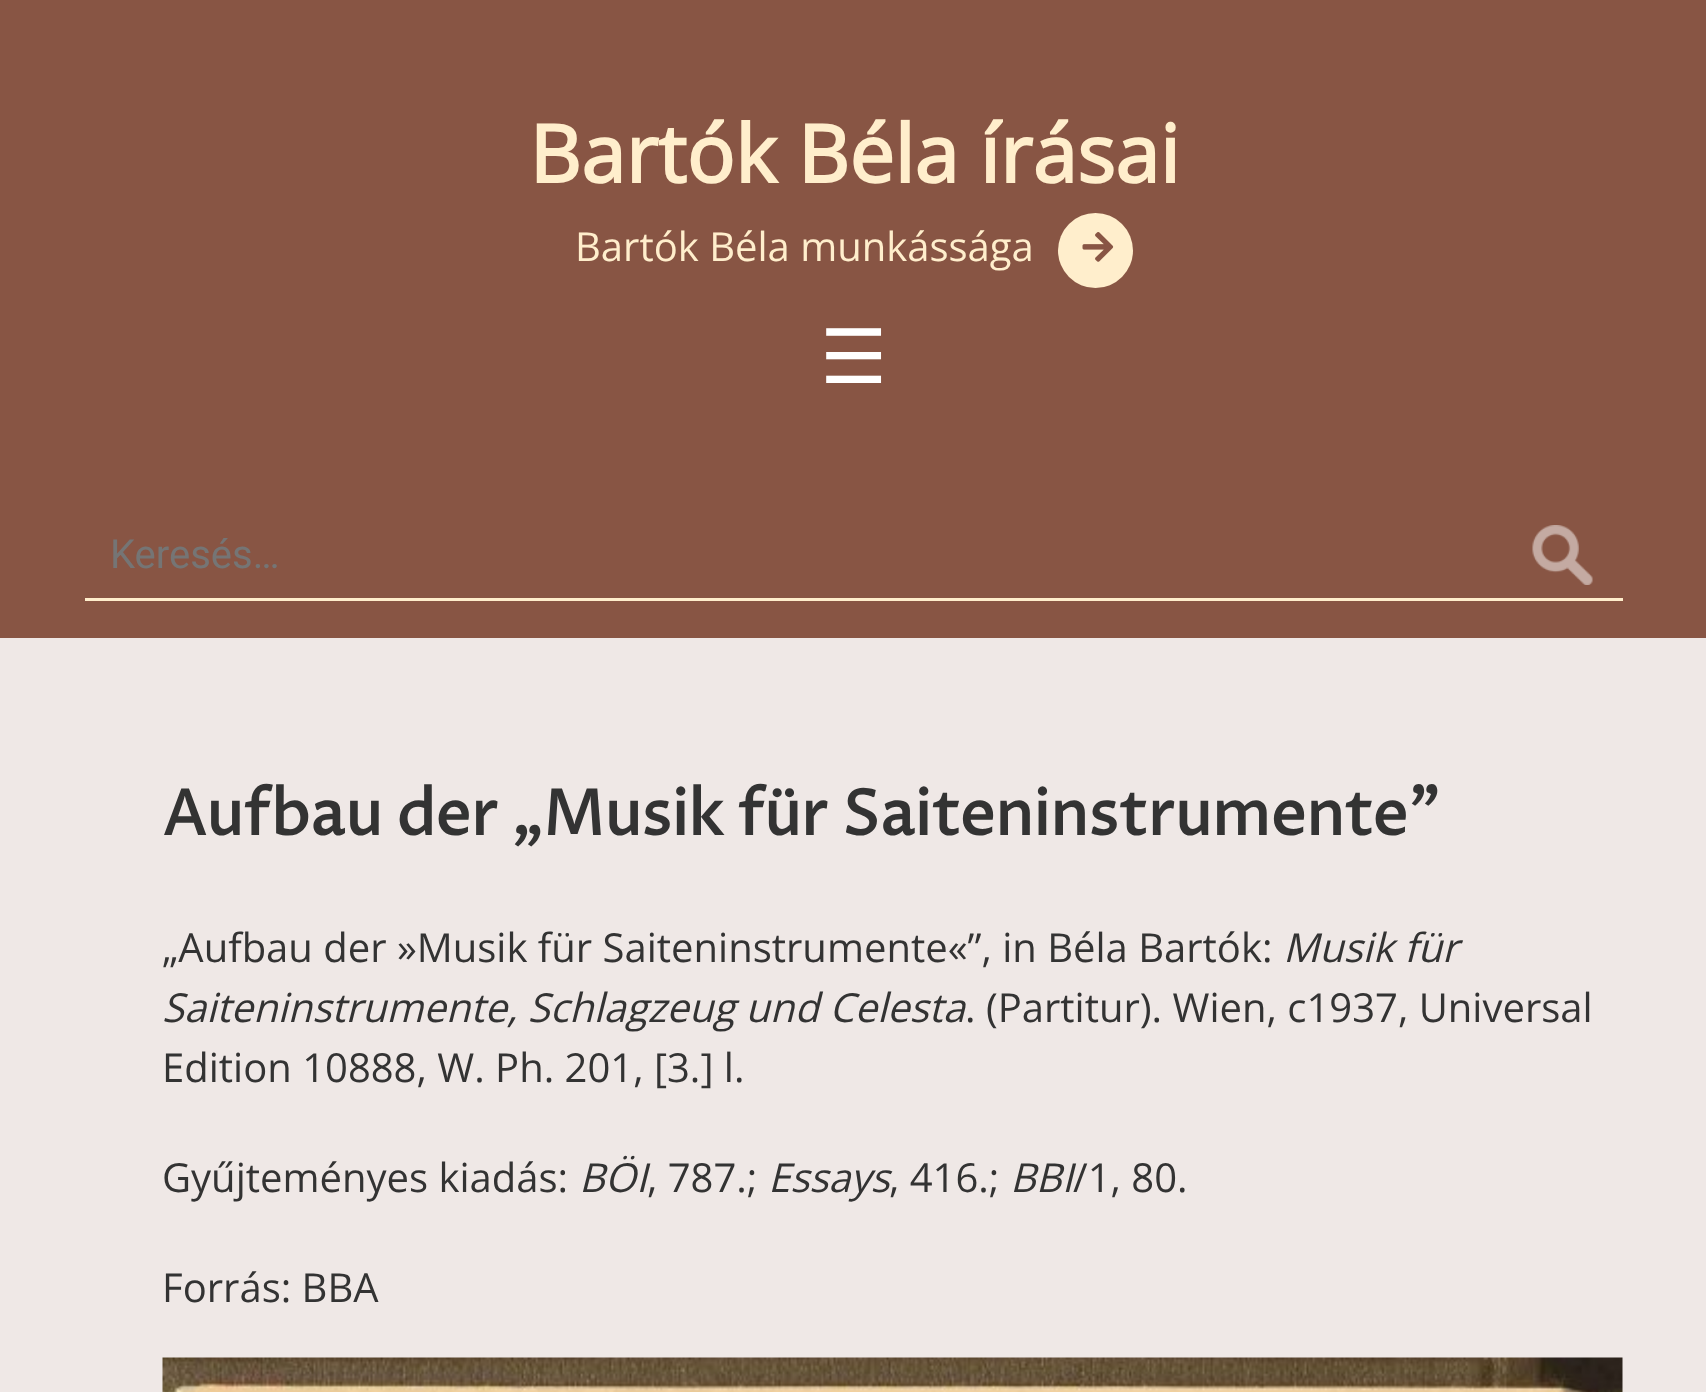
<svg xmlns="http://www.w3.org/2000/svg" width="1706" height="1392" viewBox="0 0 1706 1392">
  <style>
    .t1 { font: bold 80px Open Sans; fill: #fec; }
    .t2 { font: 40px Open Sans; fill: #fec; }
    .t3 { font: 75px DejaVu Sans; fill: #fff; }
    .t4 { font: 40px Roboto; fill: #757575; }
    .t5 { font: bold 62.5px Proza Libre; fill: #333; }
    .t6 { font: 40px Open Sans; fill: #333; }
    .t7 { font: italic 40px Open Sans; fill: #333; }
  </style>
  <rect width="100%" height="100%" fill="#854"/>
  <text x="529" y="183" class="t1">Bartók Béla írásai</text>
  <text x="575" y="261" class="t2">Bartók Béla munkássága</text>
  <circle cx="1095.5" cy="250.5" r="37.5" fill="#fec"/>
  <image x="1082" y="232" width="32" height="30" href="images/1.png"/>
  <text x="820" y="383" class="t3">☰</text>
  <image x="1532" y="525" width="61" height="60" href="images/2.png"/>
  <rect x="85" y="598" width="1538" height="3" fill="#fec"/>
  <text x="110" y="568" class="t4">Keresés…</text>
  <rect x="0" y="638" width="1706" height="754" fill="#efe8e6"/>
  <text x="162" y="835" class="t5">Aufbau der „Musik für Saiteninstrumente”</text>
  <text x="162" y="962" class="t6">„Aufbau der »Musik für Saiteninstrumente«”, in Béla Bartók:</text>
  <text x="1283" y="962" class="t7">Musik für</text>
  <text x="162" y="1022" class="t7">Saiteninstrumente, Schlagzeug und Celesta</text>
  <text x="965" y="1022" class="t6">. (Partitur). Wien, c1937, Universal</text>
  <text x="162" y="1082" class="t6">Edition 10888, W. Ph. 201, [3.] l.</text>
  <text x="162" y="1192" class="t6">Gyűjteményes kiadás:</text>
  <text x="579" y="1192" class="t7">BÖI</text>
  <text x="647" y="1192" class="t6">, 787.;</text>
  <text x="768" y="1192" class="t7">Essays</text>
  <text x="889" y="1192" class="t6">, 416.;</text>
  <text x="1010" y="1192" class="t7">BBI</text>
  <text x="1073" y="1192" class="t6">/1, 80.</text>
  <text x="162" y="1302" class="t6">Forrás: BBA</text>
  <image x="162" y="1357" width="1461" height="35" href="images/3.png"/>
</svg>
